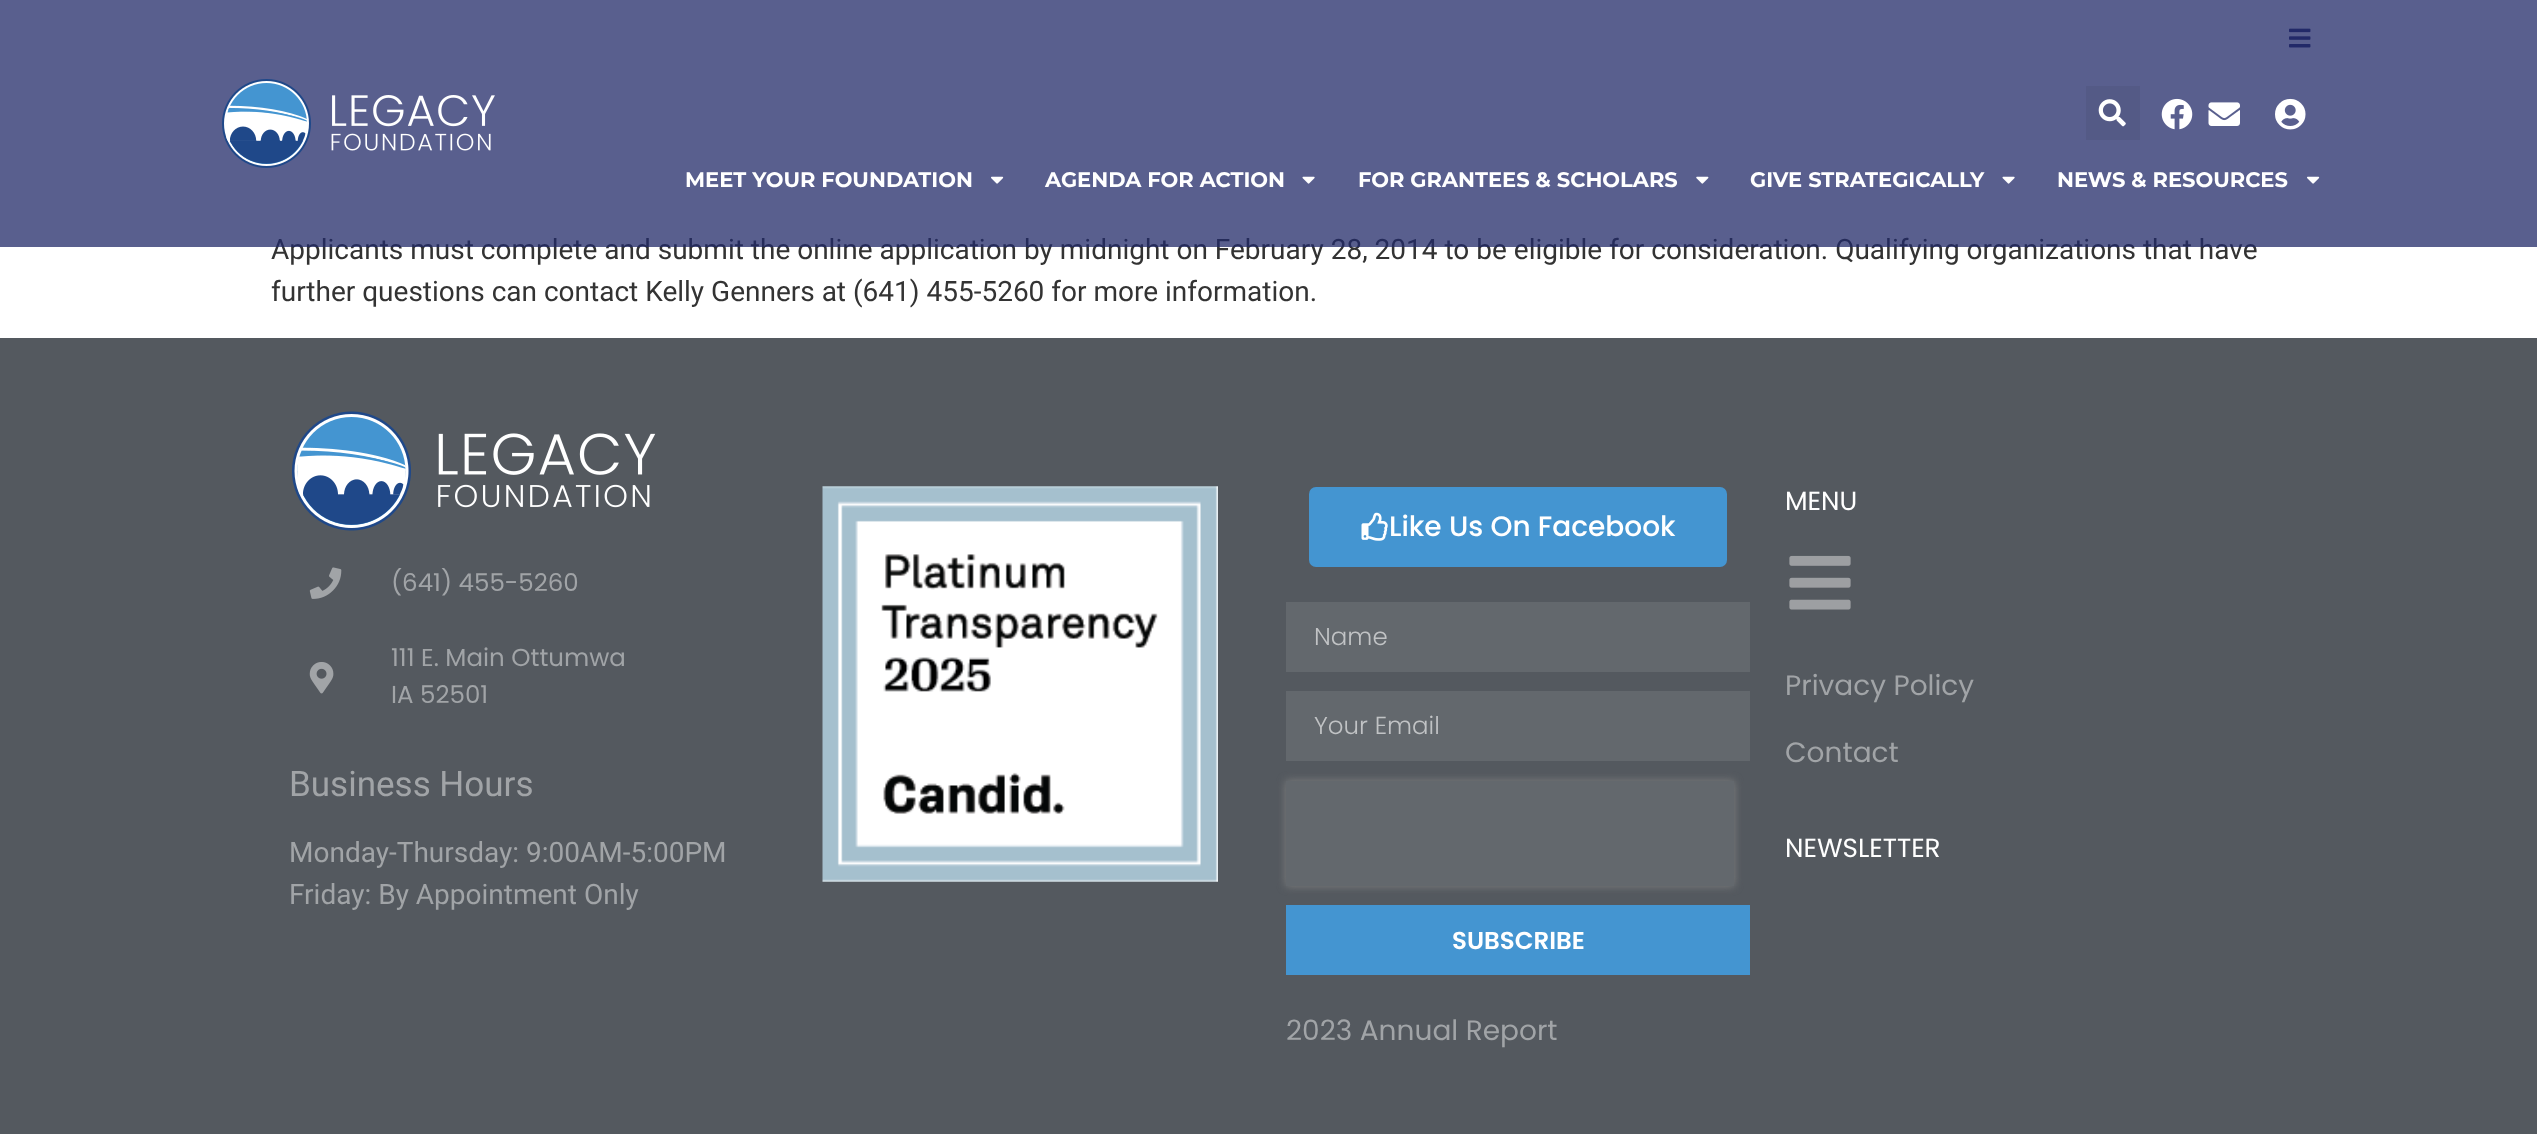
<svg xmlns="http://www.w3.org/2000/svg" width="2537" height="1134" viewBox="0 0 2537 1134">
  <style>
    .t1 { font: 28px Roboto; fill: #333; }
    .t2 { font: bold 21px Montserrat; fill: #fff; }
    .t3 { font: 24.5px Poppins; fill: #a1a4a7; }
    .t4 { font: 35px Roboto; fill: #a1a4a7; }
    .t5 { font: 28px Roboto; fill: #a1a4a7; }
    .t6 { font: 500 28px Poppins; fill: #fff; }
    .t7 { font: 300 24.5px Poppins; fill: #c1c3c5; }
    .t8 { font: 600 24.5px Poppins; fill: #fff; }
    .t9 { font: 28px Poppins; fill: #a1a4a7; }
    .t10 { font: 26.25px Poppins; fill: #fff; }
  </style>
  <defs>
    <clipPath id="clip1"><path d="M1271 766H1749V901H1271ZM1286 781H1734V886H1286Z" clip-rule="evenodd"/></clipPath>
  </defs>
  <rect width="100%" height="100%" fill="#fff"/>
  <text x="271" y="259" class="t1">Applicants must complete and submit the online application by midnight on February 28, 2014 to be eligible for consideration. Qualifying organizations that have</text>
  <rect x="0" y="0" width="2537" height="247" fill="#222968bf"/>
  <image x="222" y="79" width="273" height="89" href="images/1.png"/>
  <image x="2289" y="28" width="22" height="20" href="images/2.png"/>
  <rect x="2086" y="86" width="54" height="54" fill="#0000000d"/>
  <image x="2098" y="99" width="28" height="28" href="images/3.png"/>
  <image x="2161" y="98" width="32" height="32" href="images/4.png"/>
  <image x="2208" y="102" width="32" height="24" href="images/5.png"/>
  <image x="2275" y="98" width="31" height="32" href="images/6.png"/>
  <text x="685" y="187" class="t2">MEET YOUR FOUNDATION</text>
  <image x="991" y="176" width="13" height="8" href="images/7.png"/>
  <text x="1045" y="187" class="t2">AGENDA FOR ACTION</text>
  <image x="1302" y="176" width="13" height="8" href="images/8.png"/>
  <text x="1358" y="187" class="t2">FOR GRANTEES &amp; SCHOLARS</text>
  <image x="1696" y="176" width="13" height="8" href="images/9.png"/>
  <text x="1750" y="187" class="t2">GIVE STRATEGICALLY</text>
  <image x="2002" y="176" width="13" height="8" href="images/8.png"/>
  <text x="2057" y="187" class="t2">NEWS &amp; RESOURCES</text>
  <image x="2307" y="176" width="13" height="8" href="images/7.png"/>
  <text x="271" y="301" class="t1">further questions can contact Kelly Genners at (641) 455-5260 for more information.</text>
  <rect x="0" y="338" width="2537" height="796" fill="#54595f"/>
  <image x="292" y="411" width="364" height="120" href="images/10.png"/>
  <image x="309" y="567" width="33" height="32" href="images/11.png"/>
  <text x="391" y="591" class="t3">(641) 455-5260</text>
  <image x="309" y="662" width="25" height="32" href="images/12.png"/>
  <text x="391" y="666" class="t3">111 E. Main Ottumwa</text>
  <text x="391" y="703" class="t3">IA 52501</text>
  <text x="289" y="796" class="t4">Business Hours</text>
  <text x="289" y="862" class="t5">Monday-Thursday: 9:00AM-5:00PM</text>
  <text x="289" y="904" class="t5">Friday: By Appointment Only</text>
  <image x="822" y="486" width="396" height="396" href="images/13.png"/>
  <rect x="1309" y="487" width="418" height="80" rx="7" fill="#4495d1"/>
  <image x="1361" y="512" width="27" height="29" href="images/14.png"/>
  <text x="1389" y="536" class="t6">Like Us On Facebook</text>
  <rect x="1286" y="602" width="464" height="70" fill="#63686d"/>
  <text x="1314" y="645" class="t7">Name</text>
  <rect x="1286" y="691" width="464" height="70" fill="#63686d"/>
  <text x="1314" y="734" class="t7">Your Email</text>
  <rect x="1286" y="781" width="448" height="105" fill="#63686d"/>
  <g clip-path="url(#clip1)">
    <rect x="1286" y="781" width="448" height="105" fill="#808080" filter="blur(4.5px)"/>
  </g>
  <rect x="1286" y="905" width="464" height="70" fill="#4495d1"/>
  <text x="1452" y="949" class="t8">SUBSCRIBE</text>
  <text x="1286" y="1040" class="t9">2023 Annual Report</text>
  <text x="1785" y="510" class="t10">MENU</text>
  <image x="1789" y="555" width="62" height="55" href="images/15.png"/>
  <text x="1785" y="695" class="t9">Privacy Policy</text>
  <text x="1785" y="762" class="t9">Contact</text>
  <text x="1785" y="857" class="t10">NEWSLETTER</text>
</svg>
